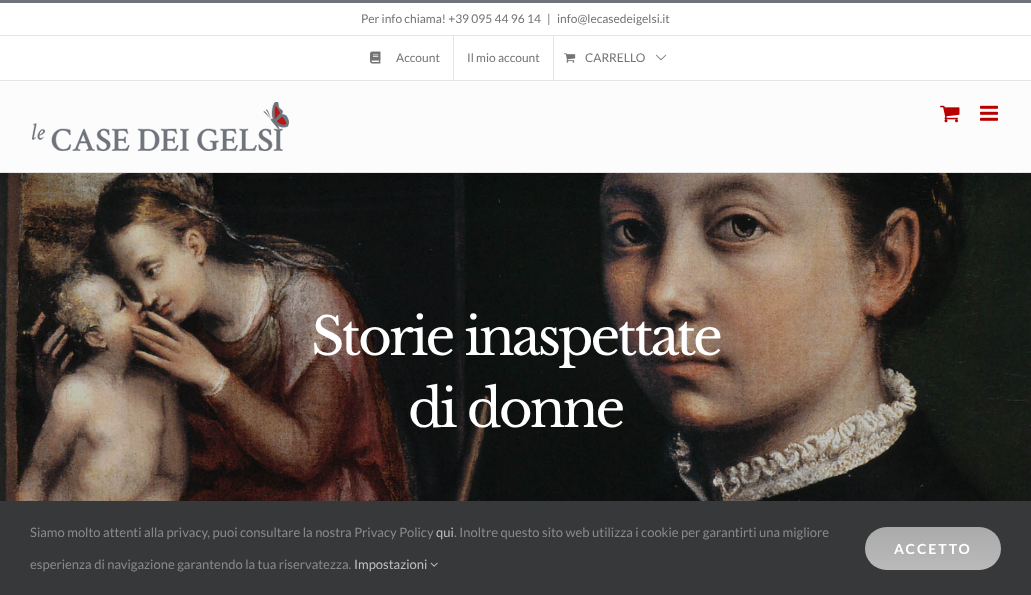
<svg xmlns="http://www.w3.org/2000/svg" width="1031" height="595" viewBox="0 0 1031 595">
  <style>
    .t1 { font: 12px Lato; fill: #747474; }
    .t2 { font: 52px Libre Baskerville; letter-spacing: -3px; fill: #fff; }
    .t3 { font: 13px Lato; fill: #8c8989; }
    .t4 { font: 13px Lato; fill: #bfbfbf; }
    .t5 { font: bold 14px Lato; letter-spacing: 2px; fill: #fff; }
  </style>
  <defs>
    <clipPath id="clip1"><rect x="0" y="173" width="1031" height="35"/></clipPath>
    <linearGradient id="g1" gradientUnits="userSpaceOnUse" x1="933" y1="527" x2="933" y2="570"><stop offset="0" stop-color="#aaa"/><stop offset="1" stop-color="#bababa"/></linearGradient>
  </defs>
  <rect width="100%" height="100%" fill="#fff"/>
  <image x="0" y="173" width="1031" height="328" href="images/7.png"/>
  <g clip-path="url(#clip1)">
    <rect x="2" y="12" width="1027" height="169" fill="#00000024" filter="blur(25px)"/>
  </g>
  <rect x="0" y="0" width="1031" height="3" fill="#6f727b"/>
  <rect x="0" y="80" width="1031" height="1" fill="#e5e5e5"/>
  <rect x="0" y="35" width="1031" height="1" fill="#e5e5e5"/>
  <text x="361" y="23" class="t1">Per info chiama! +39 095 44 96 14</text>
  <text x="547" y="23" class="t1">|</text>
  <text x="557" y="23" class="t1">info@lecasedeigelsi.it</text>
  <image x="370" y="51" width="11" height="13" href="images/1.png"/>
  <text x="396" y="62" class="t1">Account</text>
  <rect x="453" y="36" width="1" height="44" fill="#e5e5e5"/>
  <text x="467" y="62" class="t1">Il mio account</text>
  <rect x="553" y="36" width="1" height="44" fill="#e5e5e5"/>
  <image x="564" y="53" width="12" height="10" href="images/2.png"/>
  <text x="585" y="62" class="t1">CARRELLO</text>
  <image x="655" y="54" width="12" height="7" href="images/3.png"/>
  <rect x="0" y="81" width="1031" height="91" fill="#fcfcfc"/>
  <rect x="0" y="172" width="1031" height="1" fill="#e5e5e5"/>
  <image x="32" y="102" width="257" height="49" href="images/4.png"/>
  <image x="940" y="105" width="20" height="18" href="images/5.png"/>
  <image x="980" y="105" width="18" height="16" href="images/6.png"/>
  <text x="311" y="355" class="t2">Storie inaspettate</text>
  <text x="408" y="427" class="t2">di donne</text>
  <rect x="0" y="501" width="1031" height="94" fill="#363839"/>
  <text x="30" y="537" class="t3">Siamo molto attenti alla privacy, puoi consultare la nostra Privacy Policy</text>
  <text x="436" y="537" class="t4">qui</text>
  <text x="454" y="537" class="t3">. Inoltre questo sito web utilizza i cookie per garantirti una migliore</text>
  <text x="30" y="569" class="t3">esperienza di navigazione garantendo la tua riservatezza.</text>
  <text x="354" y="569" class="t4">Impostazioni</text>
  <image x="430" y="562" width="8" height="5" href="images/8.png"/>
  <rect x="865" y="527" width="136" height="43" rx="21.5" fill="url(#g1)"/>
  <text x="894" y="554" class="t5">ACCETTO</text>
</svg>
